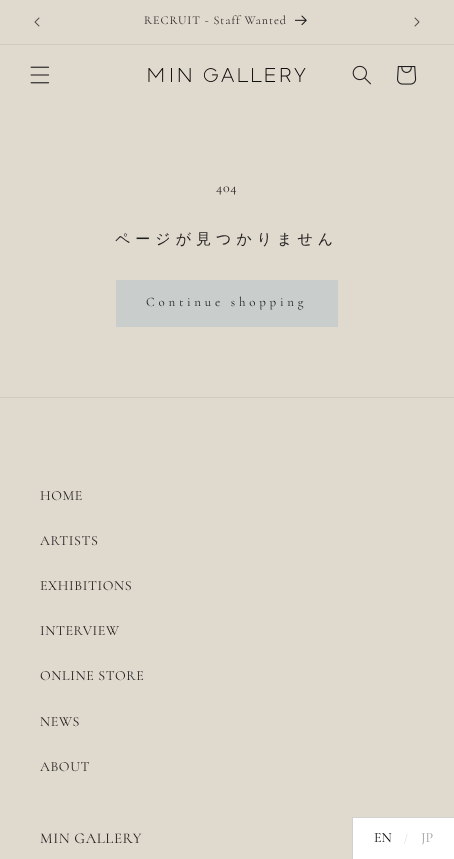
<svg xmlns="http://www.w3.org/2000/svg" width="454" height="859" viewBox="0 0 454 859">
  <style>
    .t1 { font: 12px Cormorant; letter-spacing: 1px; fill: #1f1e1e; }
    .t2 { font: 14px Cormorant; letter-spacing: 0.6px; fill: #1f1e1e; }
    .t3 { font: 500 15px WenQuanYi Zen Hei; letter-spacing: 5px; fill: #1f1e1e; }
    .t4 { font: 13px Cormorant; letter-spacing: 3.75px; fill: #1f1e1e; }
    .t5 { font: 15px Cormorant; letter-spacing: 0.6px; fill: #1f1e1e; }
    .t6 { font: 14px Cormorant; fill: #000; }
    .t7 { font: 11px Cormorant; letter-spacing: 0.6px; fill: #d1d1d1; }
    .t8 { font: 14px Cormorant; fill: #a0a0a0; }
  </style>
  <rect width="100%" height="100%" fill="#e0d9ce"/>
  <rect x="0" y="44" width="454" height="1" fill="#d1cac0"/>
  <image x="34" y="17" width="6" height="10" href="images/1.png"/>
  <text x="144" y="24" class="t1">RECRUIT - Staff Wanted</text>
  <image x="295" y="15" width="12" height="11" href="images/2.png"/>
  <image x="414" y="17" width="6" height="10" href="images/3.png"/>
  <image x="30" y="66" width="20" height="18" href="images/4.png"/>
  <image x="148" y="68" width="158" height="14" href="images/5.png"/>
  <image x="352" y="65" width="19" height="20" href="images/6.png"/>
  <image x="397" y="66" width="20" height="19" href="images/7.png"/>
  <text x="216" y="192" class="t2">404</text>
  <text x="115" y="244" class="t3">ページが見つかりません</text>
  <rect x="116" y="280" width="222" height="47" fill="#c9cecd"/>
  <text x="146" y="306" class="t4">Continue shopping</text>
  <rect x="0" y="397" width="454" height="1" fill="#d1cac0"/>
  <text x="40" y="500" class="t2">HOME</text>
  <text x="40" y="545" class="t2">ARTISTS</text>
  <text x="40" y="590" class="t2">EXHIBITIONS</text>
  <text x="40" y="635" class="t2">INTERVIEW</text>
  <text x="40" y="680" class="t2">ONLINE STORE</text>
  <text x="40" y="726" class="t2">NEWS</text>
  <text x="40" y="771" class="t2">ABOUT</text>
  <text x="40" y="843" class="t5">MIN GALLERY</text>
  <rect x="352" y="817" width="1" height="42" fill="#d1d1d1"/>
  <rect x="353" y="818" width="101" height="41" fill="#fff"/>
  <rect x="353" y="817" width="101" height="1" fill="#d1d1d1"/>
  <text x="374" y="842" class="t6">EN</text>
  <text x="404" y="842" class="t7">/</text>
  <text x="421" y="842" class="t8">JP</text>
</svg>
